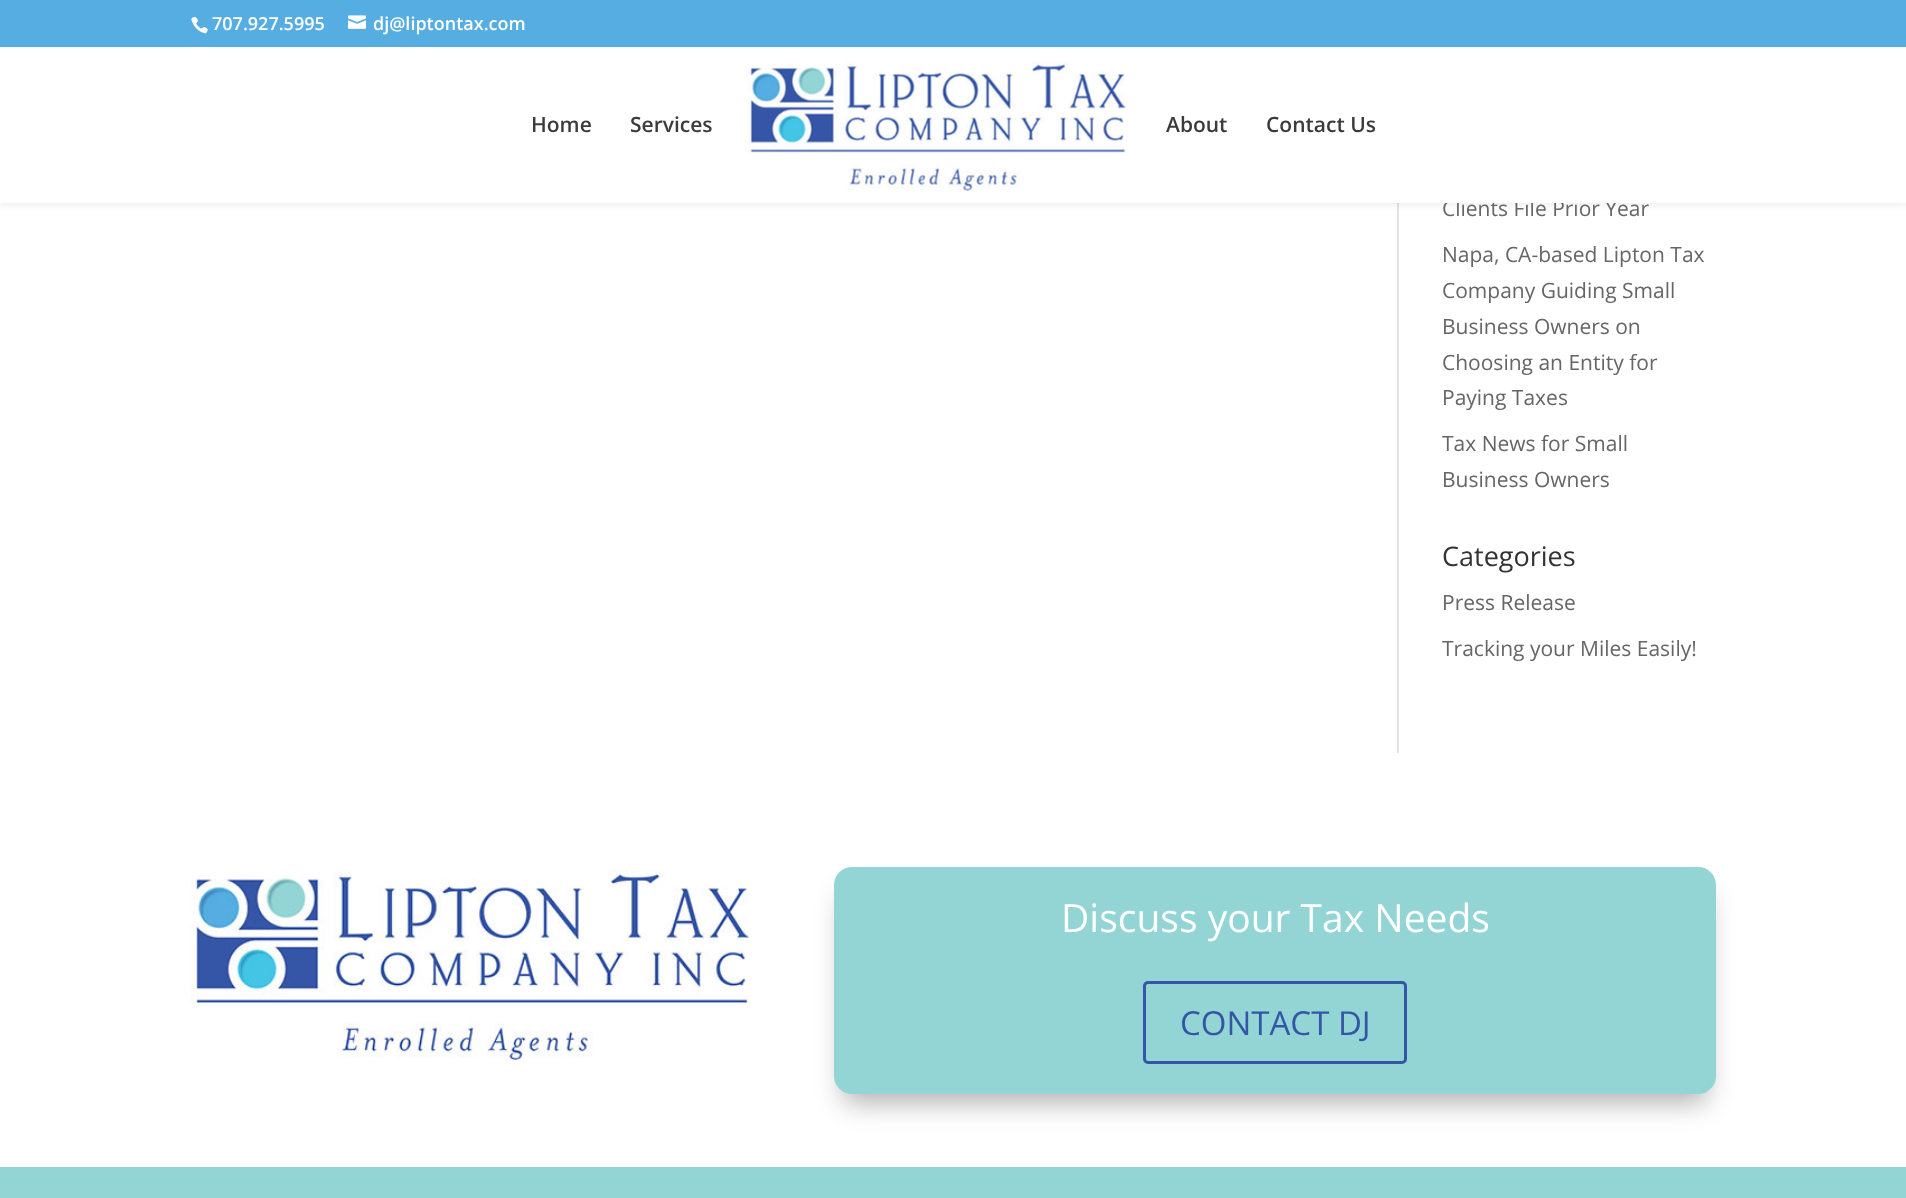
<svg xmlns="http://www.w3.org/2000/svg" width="1906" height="1198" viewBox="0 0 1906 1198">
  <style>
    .t1 { font: 600 18px Open Sans; fill: #fff; }
    .t2 { font: 21px Open Sans; fill: #666; }
    .t3 { font: 600 21px Open Sans; fill: #3b3b3b; }
    .t4 { font: 27px Open Sans; fill: #333; }
    .t5 { font: 39px Open Sans; fill: #fff; }
    .t6 { font: 33px Open Sans; fill: #3556a7; }
  </style>
  <rect width="100%" height="100%" fill="#fff"/>
  <rect x="1397" y="203" width="2" height="550" fill="#e2e2e2"/>
  <rect x="0" y="47" width="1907" height="156" fill="#0000001a" filter="blur(5px)"/>
  <rect x="0" y="0" width="1906" height="47" fill="#56ade2"/>
  <image x="191" y="16" width="17" height="18" href="images/1.png"/>
  <text x="212" y="30" class="t1">707.927.5995</text>
  <image x="348" y="15" width="18" height="14" href="images/2.png"/>
  <text x="373" y="30" class="t1">dj@liptontax.com</text>
  <text x="1442" y="216" class="t2">Clients File Prior Year</text>
  <rect x="0" y="47" width="1906" height="156" fill="#fff"/>
  <text x="531" y="132" class="t3">Home</text>
  <text x="630" y="132" class="t3">Services</text>
  <image x="747" y="61" width="380" height="130" href="images/3.png"/>
  <text x="1166" y="132" class="t3">About</text>
  <text x="1266" y="132" class="t3">Contact Us</text>
  <text x="1442" y="262" class="t2">Napa, CA-based Lipton Tax</text>
  <text x="1442" y="298" class="t2">Company Guiding Small</text>
  <text x="1442" y="334" class="t2">Business Owners on</text>
  <text x="1442" y="370" class="t2">Choosing an Entity for</text>
  <text x="1442" y="405" class="t2">Paying Taxes</text>
  <text x="1442" y="451" class="t2">Tax News for Small</text>
  <text x="1442" y="487" class="t2">Business Owners</text>
  <text x="1442" y="566" class="t4">Categories</text>
  <text x="1442" y="610" class="t2">Press Release</text>
  <text x="1442" y="656" class="t2">Tracking your Miles Easily!</text>
  <image x="190" y="869" width="560" height="191" href="images/4.png"/>
  <rect x="843" y="894" width="864" height="209" rx="9" fill="#0000004d" filter="blur(13.5px)"/>
  <rect x="834" y="867" width="882" height="227" rx="18" fill="#93d5d4"/>
  <text x="1061" y="932" class="t5">Discuss your Tax Needs</text>
  <rect x="1144.5" y="982.5" width="261" height="80" rx="3.5" fill="none" stroke="#3556a7" stroke-width="3"/>
  <text x="1180" y="1035" class="t6">CONTACT DJ</text>
  <rect x="0" y="1167" width="1906" height="31" fill="#93d5d4"/>
</svg>
